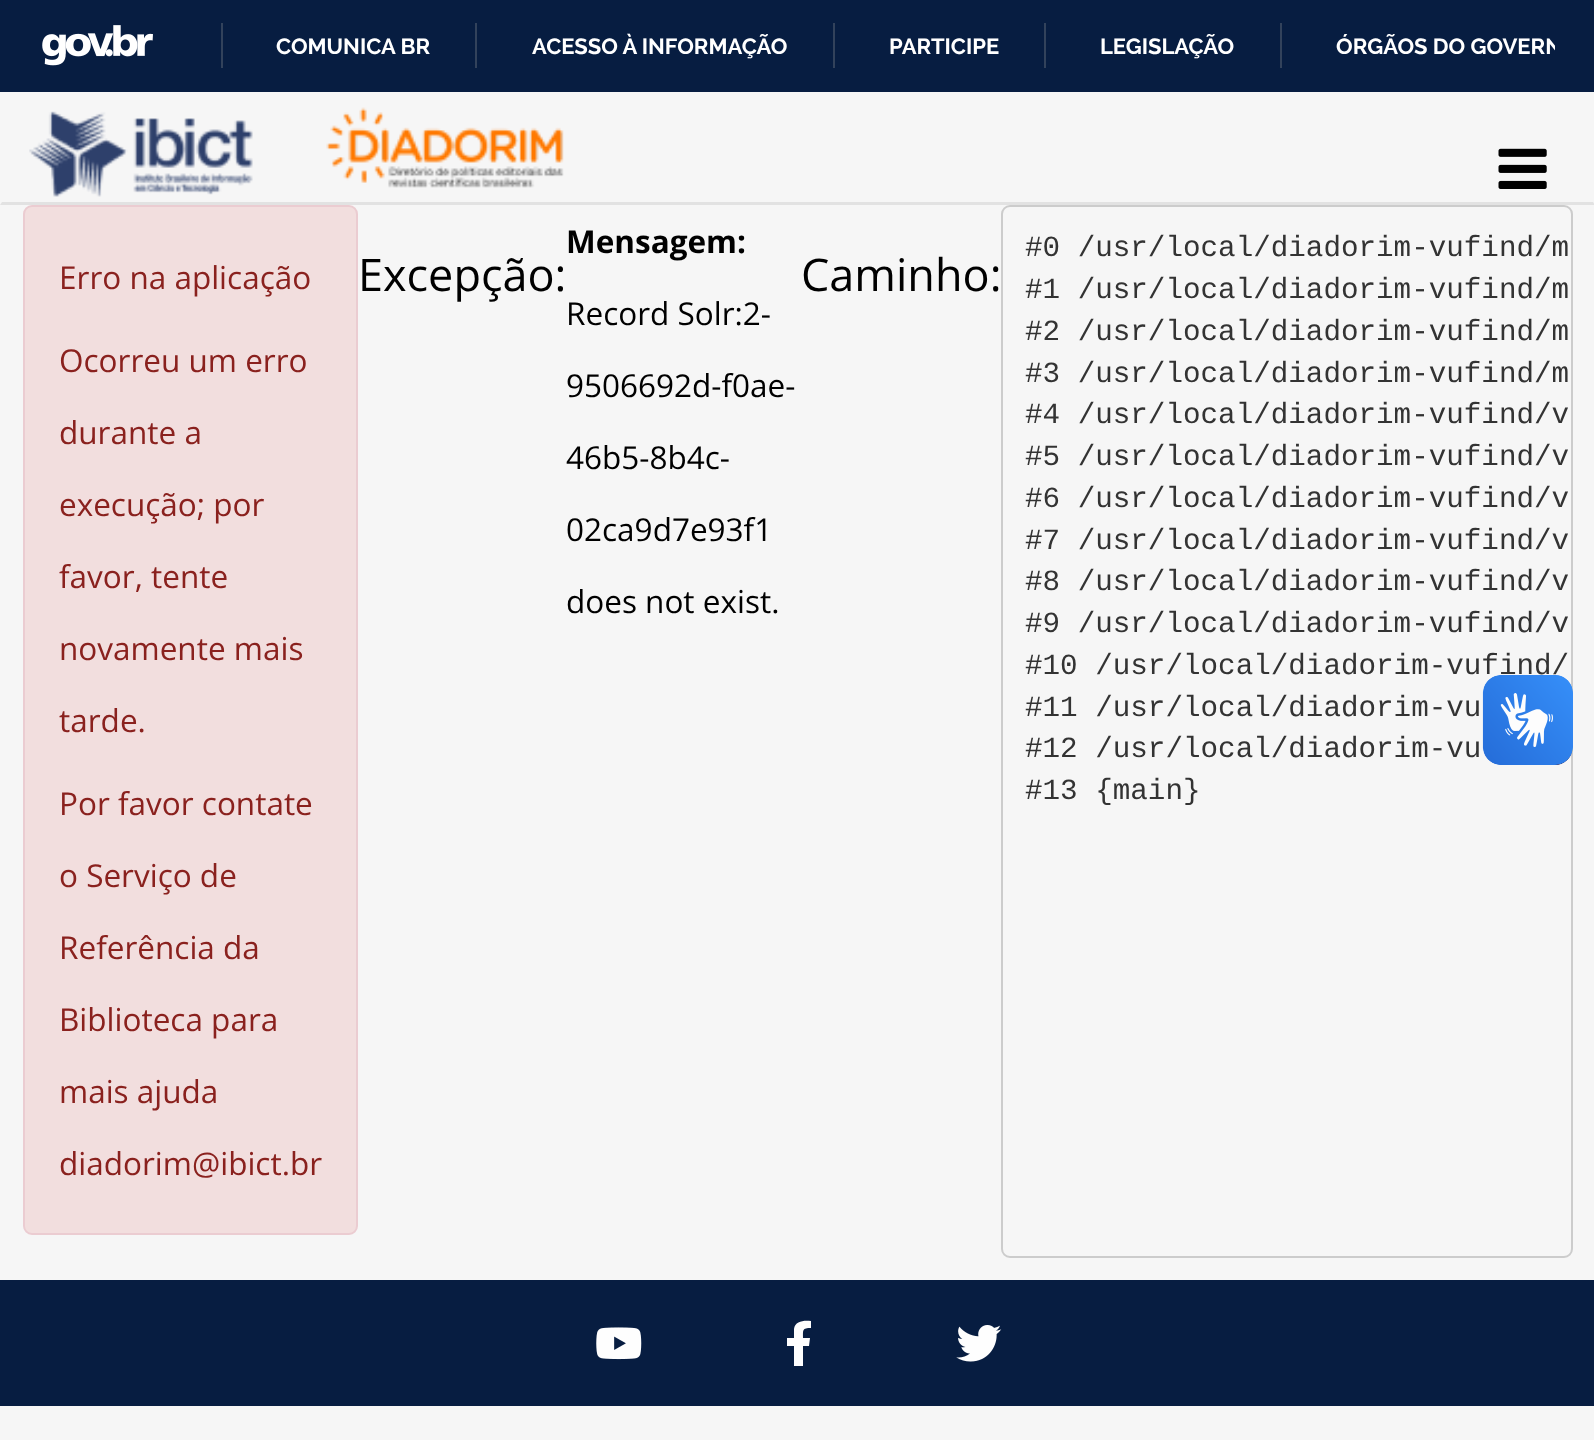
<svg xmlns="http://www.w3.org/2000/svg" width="1594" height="1440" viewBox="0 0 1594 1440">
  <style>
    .t1 { font: bold 22px Raleway; fill: #fff; }
    .t2 { font: 31.5px Open Sans; fill: #8a211e; }
    .t3 { font: 45px 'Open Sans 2'; fill: #000; }
    .t4 { font: bold 31.5px Open Sans; fill: #000; }
    .t5 { font: 31.5px Open Sans; fill: #000; }
    .t6 { font: 29.25px Liberation Mono; fill: #333; }
  </style>
  <defs>
    <clipPath id="clip1"><rect x="176" y="7" width="1379" height="76"/></clipPath>
  </defs>
  <rect width="100%" height="100%" fill="#f6f6f6"/>
  <rect x="0" y="0" width="1594" height="92" fill="#071d41"/>
  <image x="42" y="25" width="111" height="41" href="images/1.png"/>
  <rect x="221" y="23" width="2" height="45" fill="#32425b"/>
  <text x="276" y="54" class="t1">COMUNICA BR</text>
  <rect x="475" y="23" width="2" height="45" fill="#32425b"/>
  <text x="532" y="54" class="t1">ACESSO À INFORMAÇÃO</text>
  <rect x="833" y="23" width="2" height="45" fill="#32425b"/>
  <text x="889" y="54" class="t1">PARTICIPE</text>
  <rect x="1044" y="23" width="2" height="45" fill="#32425b"/>
  <text x="1100" y="54" class="t1">LEGISLAÇÃO</text>
  <rect x="1280" y="23" width="2" height="45" fill="#32425b"/>
  <g clip-path="url(#clip1)">
    <text x="1336" y="54" class="t1">ÓRGÃOS DO GOVERN</text>
  </g>
  <path d="M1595 205H0L2 202H1593Z" fill="#e2e2e2"/>
  <image x="29" y="111" width="224" height="86" href="images/2.png"/>
  <image x="326" y="107" width="238" height="81" href="images/3.png"/>
  <image x="1498" y="148" width="49" height="41" href="images/4.png"/>
  <rect x="24" y="206" width="333" height="1028" rx="8" fill="#f2dede" stroke="#ebccd1" stroke-width="2"/>
  <text x="59" y="289" class="t2">Erro na aplicação</text>
  <text x="59" y="372" class="t2">Ocorreu um erro</text>
  <text x="59" y="444" class="t2">durante a</text>
  <text x="59" y="516" class="t2">execução; por</text>
  <text x="59" y="588" class="t2">favor, tente</text>
  <text x="59" y="660" class="t2">novamente mais</text>
  <text x="59" y="732" class="t2">tarde.</text>
  <text x="59" y="815" class="t2">Por favor contate</text>
  <text x="59" y="887" class="t2">o Serviço de</text>
  <text x="59" y="959" class="t2">Referência da</text>
  <text x="59" y="1031" class="t2">Biblioteca para</text>
  <text x="59" y="1103" class="t2">mais ajuda</text>
  <text x="59" y="1175" class="t2">diadorim@ibict.br</text>
  <text x="358" y="291" class="t3">Excepção:</text>
  <text x="566" y="253" class="t4">Mensagem:</text>
  <text x="566" y="325" class="t5">Record Solr:2-</text>
  <text x="566" y="397" class="t5">9506692d-f0ae-</text>
  <text x="566" y="469" class="t5">46b5-8b4c-</text>
  <text x="566" y="541" class="t5">02ca9d7e93f1</text>
  <text x="566" y="613" class="t5">does not exist.</text>
  <text x="801" y="291" class="t3">Caminho:</text>
  <rect x="1002" y="206" width="570" height="1051" rx="8" fill="none" stroke="#ccc" stroke-width="2"/>
  <text x="1025" y="256" class="t6">#0 /usr/local/diadorim-vufind/m</text>
  <text x="1025" y="298" class="t6">#1 /usr/local/diadorim-vufind/m</text>
  <text x="1025" y="340" class="t6">#2 /usr/local/diadorim-vufind/m</text>
  <text x="1025" y="382" class="t6">#3 /usr/local/diadorim-vufind/m</text>
  <text x="1025" y="423" class="t6">#4 /usr/local/diadorim-vufind/v</text>
  <text x="1025" y="465" class="t6">#5 /usr/local/diadorim-vufind/v</text>
  <text x="1025" y="507" class="t6">#6 /usr/local/diadorim-vufind/v</text>
  <text x="1025" y="549" class="t6">#7 /usr/local/diadorim-vufind/v</text>
  <text x="1025" y="590" class="t6">#8 /usr/local/diadorim-vufind/v</text>
  <text x="1025" y="632" class="t6">#9 /usr/local/diadorim-vufind/v</text>
  <text x="1025" y="674" class="t6">#10 /usr/local/diadorim-vufind/</text>
  <text x="1025" y="716" class="t6">#11 /usr/local/diadorim-vu</text>
  <text x="1025" y="757" class="t6">#12 /usr/local/diadorim-vu</text>
  <text x="1025" y="799" class="t6">#13 {main}</text>
  <image x="1482" y="675" width="91" height="90" href="images/5.png"/>
  <image x="1483" y="675" width="90" height="90" href="images/6.png"/>
  <rect x="0" y="1280" width="1594" height="126" fill="#071d41"/>
  <image x="596" y="1327" width="46" height="33" href="images/7.png"/>
  <path d="M809 1346L810 1338H803C803 1330 802 1328 811 1328V1321C804 1320 795 1321 794 1329V1338H787V1346H794V1366H803V1346Z" fill="#fefefe"/>
  <image x="956" y="1325" width="46" height="37" href="images/8.png"/>
</svg>
